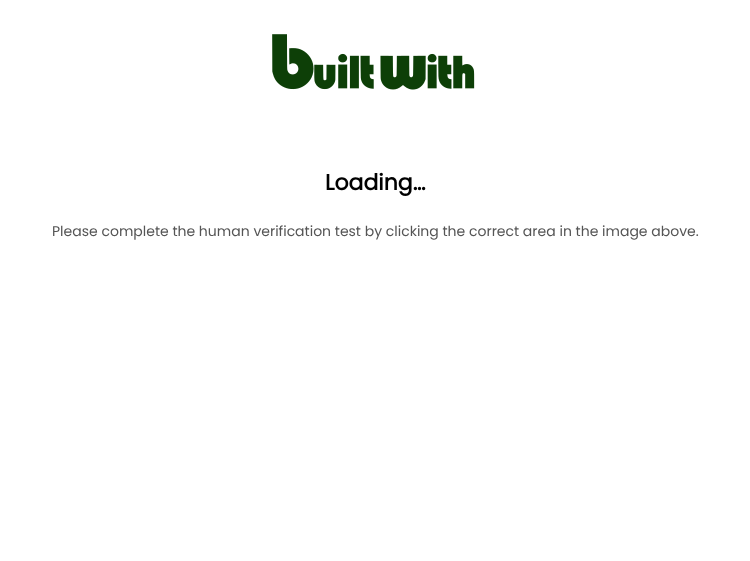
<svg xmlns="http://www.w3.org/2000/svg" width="750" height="561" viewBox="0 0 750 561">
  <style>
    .t1 { font: bold 22px Poppins; fill: #000; }
    .t2 { font: 14px Poppins; fill: #555; }
  </style>
  <rect width="100%" height="100%" fill="#fff"/>
  <image x="272" y="34" width="203" height="56" href="images/1.png"/>
  <text x="325" y="190" class="t1">Loading…</text>
  <text x="52" y="236" class="t2">Please complete the human verification test by clicking the correct area in the image above.</text>
</svg>
